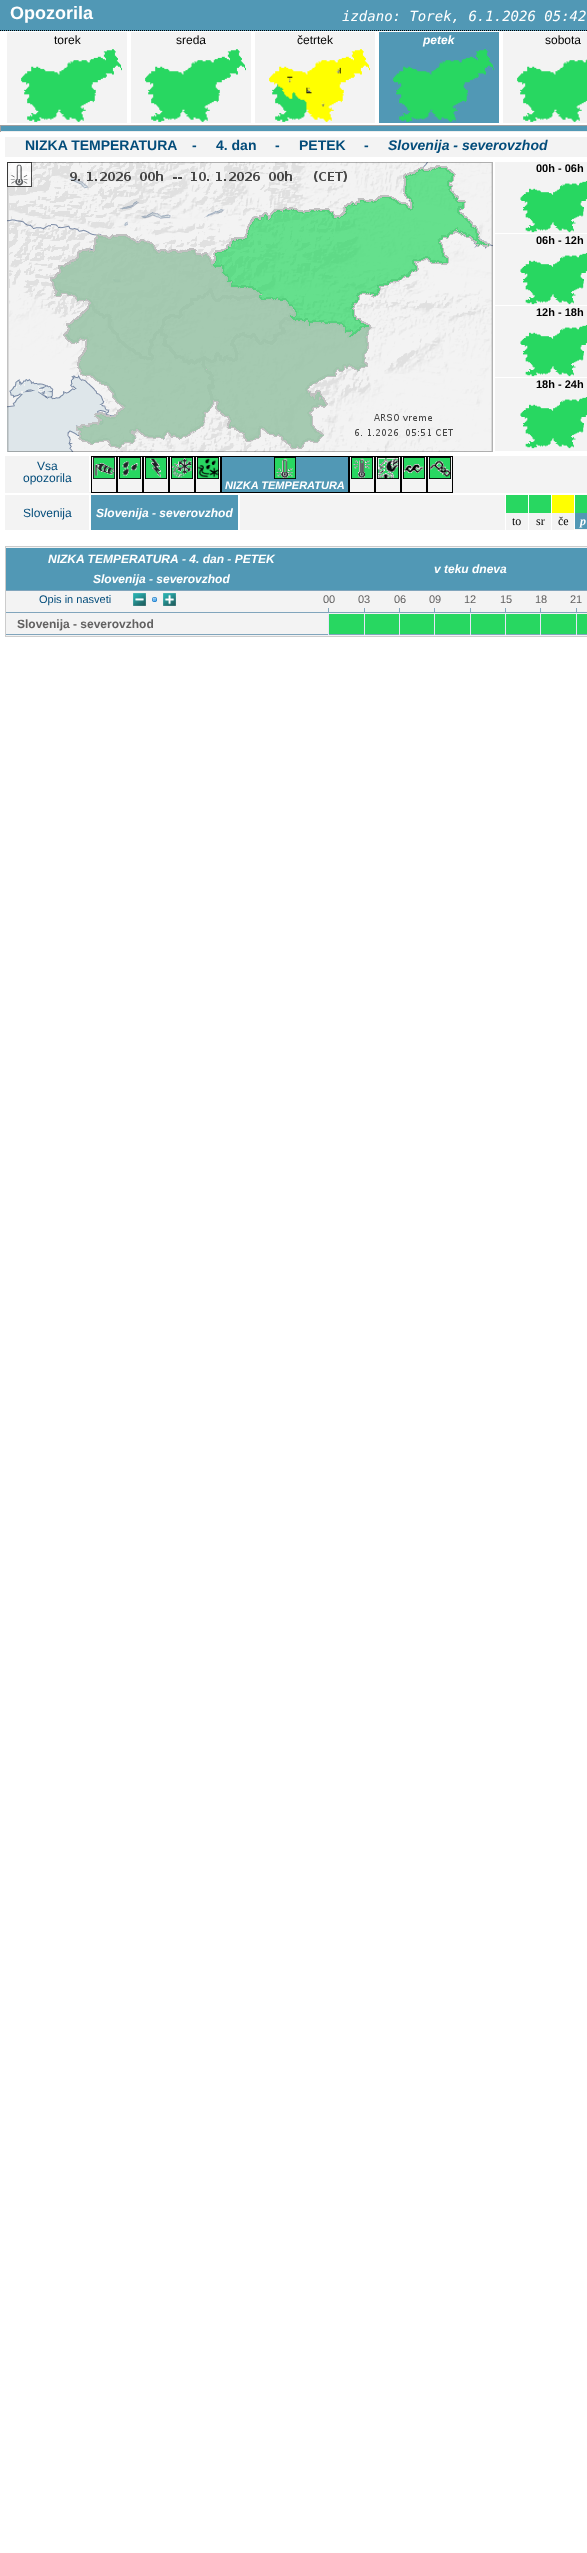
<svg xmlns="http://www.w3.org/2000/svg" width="587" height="2553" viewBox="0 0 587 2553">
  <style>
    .t1 { font: bold 18px Liberation Sans; fill: #fff; }
    .t2 { font: italic 14px DejaVu Sans Mono; fill: #fff; }
    .t3 { font: 12px Liberation Sans; fill: #000; }
    .t4 { font: italic bold 12px Liberation Sans; fill: #fff; }
    .t5 { font: bold 14px Liberation Sans; fill: #034c7a; }
    .t6 { font: italic bold 14px Liberation Sans; fill: #034c7a; }
    .t7 { font: bold 11px Liberation Sans; fill: #000; }
    .t8 { font: 12px Liberation Sans; fill: #034c7a; }
    .t9 { font: italic bold 11px Liberation Sans; fill: #fff; }
    .t10 { font: 12px Liberation Serif; fill: #000; }
    .t11 { font: italic bold 12px Liberation Serif; fill: #fff; }
    .t12 { font: 11px Liberation Sans; fill: #034c7a; }
    .t13 { font: 11px Liberation Sans; fill: #626161; }
    .t14 { font: bold 12px Liberation Sans; fill: #626161; }
  </style>
  <rect width="100%" height="100%" fill="#fff"/>
  <rect x="0" y="0" width="587" height="31" fill="#5198b5"/>
  <path d="M0 30.5H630" fill="none" stroke="#000" stroke-dasharray="1 1"/>
  <text x="10" y="19" class="t1">Opozorila</text>
  <text x="342" y="21" class="t2">izdano: Torek, 6.1.2026 05:42</text>
  <rect x="7" y="32" width="120" height="91" fill="#f3f3f3"/>
  <text x="54" y="44" class="t3">torek</text>
  <image x="21" y="49" width="101" height="73" href="images/1.png"/>
  <rect x="131" y="32" width="120" height="91" fill="#f3f3f3"/>
  <text x="176" y="44" class="t3">sreda</text>
  <image x="145" y="49" width="101" height="73" href="images/1.png"/>
  <rect x="255" y="32" width="120" height="91" fill="#f3f3f3"/>
  <text x="297" y="44" class="t3">četrtek</text>
  <image x="269" y="49" width="101" height="73" href="images/2.png"/>
  <rect x="379" y="32" width="120" height="91" fill="#5198b5"/>
  <text x="423" y="44" class="t4">petek</text>
  <image x="393" y="49" width="101" height="73" href="images/3.png"/>
  <rect x="503" y="32" width="84" height="91" fill="#f3f3f3"/>
  <text x="545" y="44" class="t3">sobota</text>
  <image x="517" y="59" width="70" height="63" href="images/4.png"/>
  <rect x="0" y="126" width="587" height="5" fill="#5198b5"/>
  <rect x="0" y="125" width="587" height="1" fill="#9f9f9f"/>
  <rect x="0" y="131" width="587" height="1" fill="#eee"/>
  <rect x="0" y="125" width="1" height="7" fill="#9f9f9f"/>
  <rect x="5" y="137" width="582" height="20" fill="#f3f3f3"/>
  <text x="25" y="150" class="t5">NIZKA TEMPERATURA</text>
  <text x="192" y="150" class="t5">-</text>
  <text x="216" y="150" class="t5">4. dan</text>
  <text x="275" y="150" class="t5">-</text>
  <text x="299" y="150" class="t5">PETEK</text>
  <text x="364" y="150" class="t5">-</text>
  <text x="388" y="150" class="t6">Slovenija - severovzhod</text>
  <rect x="495" y="162" width="92" height="289" fill="#f3f3f3"/>
  <rect x="495" y="233" width="92" height="1" fill="#fff"/>
  <text x="536" y="172" class="t7">00h - 06h</text>
  <image x="520" y="181" width="67" height="52" href="images/5.png"/>
  <rect x="495" y="305" width="92" height="1" fill="#fff"/>
  <text x="536" y="244" class="t7">06h - 12h</text>
  <image x="520" y="253" width="67" height="52" href="images/5.png"/>
  <rect x="495" y="377" width="92" height="1" fill="#fff"/>
  <text x="536" y="316" class="t7">12h - 18h</text>
  <image x="520" y="325" width="67" height="52" href="images/5.png"/>
  <text x="536" y="388" class="t7">18h - 24h</text>
  <image x="520" y="397" width="67" height="52" href="images/5.png"/>
  <rect x="492" y="162" width="1" height="290" fill="#dcdcdc"/>
  <image x="7" y="162" width="486" height="290" href="images/6.png"/>
  <image x="50" y="165" width="440" height="284" href="images/8.png"/>
  <image x="7" y="162" width="482" height="286" href="images/7.png"/>
  <image x="52" y="235" width="318" height="213" href="images/9.png"/>
  <rect x="5" y="456" width="582" height="37" fill="#f3f3f3"/>
  <rect x="89" y="456" width="2" height="36" fill="#fff"/>
  <text x="37" y="470" class="t8">Vsa</text>
  <text x="23" y="482" class="t8">opozorila</text>
  <rect x="91.5" y="456.5" width="25" height="36" fill="none" stroke="#000"/>
  <image x="93" y="457" width="22" height="22" href="images/10.png"/>
  <rect x="117.5" y="456.5" width="25" height="36" fill="none" stroke="#000"/>
  <image x="119" y="457" width="22" height="22" href="images/11.png"/>
  <rect x="143.5" y="456.5" width="25" height="36" fill="none" stroke="#000"/>
  <image x="145" y="457" width="22" height="22" href="images/12.png"/>
  <rect x="169.5" y="456.5" width="25" height="36" fill="none" stroke="#000"/>
  <image x="171" y="457" width="22" height="22" href="images/13.png"/>
  <rect x="195.5" y="456.5" width="25" height="36" fill="none" stroke="#000"/>
  <image x="197" y="457" width="22" height="22" href="images/14.png"/>
  <rect x="221.5" y="456.5" width="127" height="36" fill="#5198b5" stroke="#000"/>
  <image x="274" y="457" width="22" height="22" href="images/15.png"/>
  <text x="225" y="489" class="t9">NIZKA TEMPERATURA</text>
  <rect x="349.5" y="456.5" width="25" height="36" fill="none" stroke="#000"/>
  <image x="351" y="457" width="22" height="22" href="images/16.png"/>
  <rect x="375.5" y="456.5" width="25" height="36" fill="none" stroke="#000"/>
  <image x="377" y="457" width="22" height="22" href="images/17.png"/>
  <rect x="401.5" y="456.5" width="25" height="36" fill="none" stroke="#000"/>
  <image x="403" y="457" width="22" height="22" href="images/18.png"/>
  <rect x="427.5" y="456.5" width="25" height="36" fill="none" stroke="#000"/>
  <image x="429" y="457" width="22" height="22" href="images/19.png"/>
  <rect x="5" y="495" width="582" height="35" fill="#f3f3f3"/>
  <rect x="89" y="495" width="2" height="35" fill="#fff"/>
  <text x="23" y="517" class="t8">Slovenija</text>
  <rect x="238" y="495" width="2" height="35" fill="#fff"/>
  <rect x="91" y="495" width="147" height="35" fill="#5198b5"/>
  <text x="96" y="517" class="t4">Slovenija - severovzhod</text>
  <rect x="505" y="495" width="1" height="35" fill="#fff"/>
  <rect x="506" y="495" width="22" height="18" fill="#28d761"/>
  <rect x="529" y="495" width="22" height="18" fill="#28d761"/>
  <rect x="552" y="495" width="22" height="18" fill="#ff0"/>
  <rect x="575" y="495" width="12" height="18" fill="#28d761"/>
  <text x="512" y="525" class="t10">to</text>
  <rect x="528" y="495" width="1" height="35" fill="#fff"/>
  <text x="536" y="525" class="t10">sr</text>
  <rect x="551" y="495" width="1" height="35" fill="#fff"/>
  <text x="558" y="525" class="t10">če</text>
  <rect x="574" y="495" width="1" height="35" fill="#fff"/>
  <rect x="575" y="513" width="12" height="16" fill="#5198b5"/>
  <text x="580" y="525" class="t11">p</text>
  <rect x="5.5" y="546.5" width="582" height="90" fill="#f3f3f3" stroke="#ccc"/>
  <rect x="6" y="548" width="581" height="42" fill="#5198b5"/>
  <rect x="6" y="590" width="581" height="1" fill="#81a5bc"/>
  <text x="48" y="563" class="t4">NIZKA TEMPERATURA</text>
  <text x="182" y="563" class="t4">- 4. dan - PETEK</text>
  <text x="93" y="583" class="t4">Slovenija - severovzhod</text>
  <text x="434" y="573" class="t4">v teku dneva</text>
  <text x="39" y="603" class="t12">Opis in nasveti</text>
  <image x="133" y="593" width="13" height="13" href="images/20.png"/>
  <image x="152" y="597" width="5" height="5" href="images/21.png"/>
  <image x="163" y="593" width="13" height="13" href="images/22.png"/>
  <text x="323" y="603" class="t13">00</text>
  <text x="358" y="603" class="t13">03</text>
  <text x="394" y="603" class="t13">06</text>
  <text x="429" y="603" class="t13">09</text>
  <text x="464" y="603" class="t13">12</text>
  <text x="500" y="603" class="t13">15</text>
  <text x="535" y="603" class="t13">18</text>
  <text x="570" y="603" class="t13">21</text>
  <rect x="6" y="612" width="581" height="1" fill="#81a5bc"/>
  <rect x="328" y="608" width="1" height="5" fill="#81a5bc"/>
  <rect x="364" y="608" width="1" height="5" fill="#81a5bc"/>
  <rect x="399" y="608" width="1" height="5" fill="#81a5bc"/>
  <rect x="434" y="608" width="1" height="5" fill="#81a5bc"/>
  <rect x="470" y="608" width="1" height="5" fill="#81a5bc"/>
  <rect x="505" y="608" width="1" height="5" fill="#81a5bc"/>
  <rect x="540" y="608" width="1" height="5" fill="#81a5bc"/>
  <rect x="576" y="608" width="1" height="5" fill="#81a5bc"/>
  <text x="17" y="628" class="t14">Slovenija - severovzhod</text>
  <rect x="329" y="614" width="35" height="20" fill="#28d761"/>
  <rect x="6" y="634" width="581" height="1" fill="#81a5bc"/>
  <rect x="328" y="614" width="1" height="21" fill="#e6e6fa"/>
  <rect x="365" y="614" width="34" height="20" fill="#28d761"/>
  <rect x="364" y="614" width="1" height="21" fill="#e6e6fa"/>
  <rect x="400" y="614" width="34" height="20" fill="#28d761"/>
  <rect x="399" y="614" width="1" height="21" fill="#e6e6fa"/>
  <rect x="435" y="614" width="35" height="20" fill="#28d761"/>
  <rect x="434" y="614" width="1" height="21" fill="#e6e6fa"/>
  <rect x="471" y="614" width="34" height="20" fill="#28d761"/>
  <rect x="470" y="614" width="1" height="21" fill="#e6e6fa"/>
  <rect x="506" y="614" width="34" height="20" fill="#28d761"/>
  <rect x="505" y="614" width="1" height="21" fill="#e6e6fa"/>
  <rect x="541" y="614" width="35" height="20" fill="#28d761"/>
  <rect x="540" y="614" width="1" height="21" fill="#e6e6fa"/>
  <rect x="577" y="614" width="10" height="20" fill="#28d761"/>
  <rect x="576" y="614" width="1" height="21" fill="#e6e6fa"/>
</svg>
